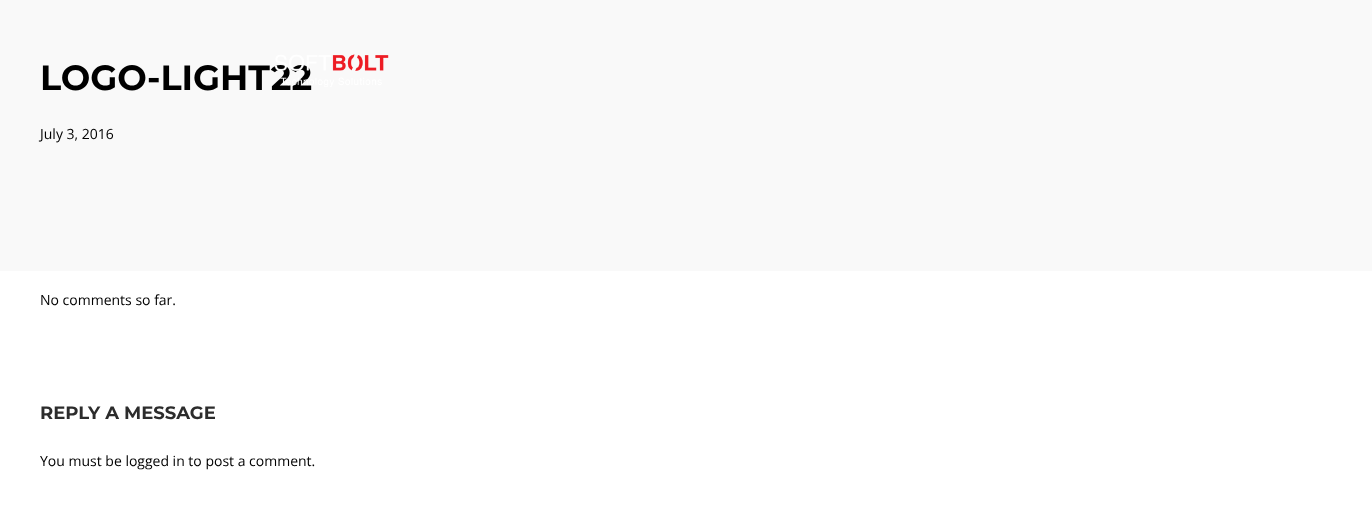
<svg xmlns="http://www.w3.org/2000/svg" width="1372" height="509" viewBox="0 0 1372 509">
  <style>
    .t1 { font: bold 35px Montserrat; fill: #000; }
    .t2 { font: 14px Open Sans; fill: #000; }
    .t3 { font: bold 18px Montserrat; fill: #2c2c2c; }
  </style>
  <rect width="100%" height="100%" fill="#fff"/>
  <rect x="0" y="0" width="1372" height="271" fill="#f9f9f9"/>
  <text x="40" y="90" class="t1">LOGO-LIGHT22</text>
  <text x="40" y="139" class="t2">July 3, 2016</text>
  <text x="40" y="305" class="t2">No comments so far.</text>
  <text x="40" y="419" class="t3">REPLY A MESSAGE</text>
  <text x="40" y="466" class="t2">You must be logged in to post a comment.</text>
  <image x="274" y="54" width="115" height="33" href="images/1.png"/>
</svg>
